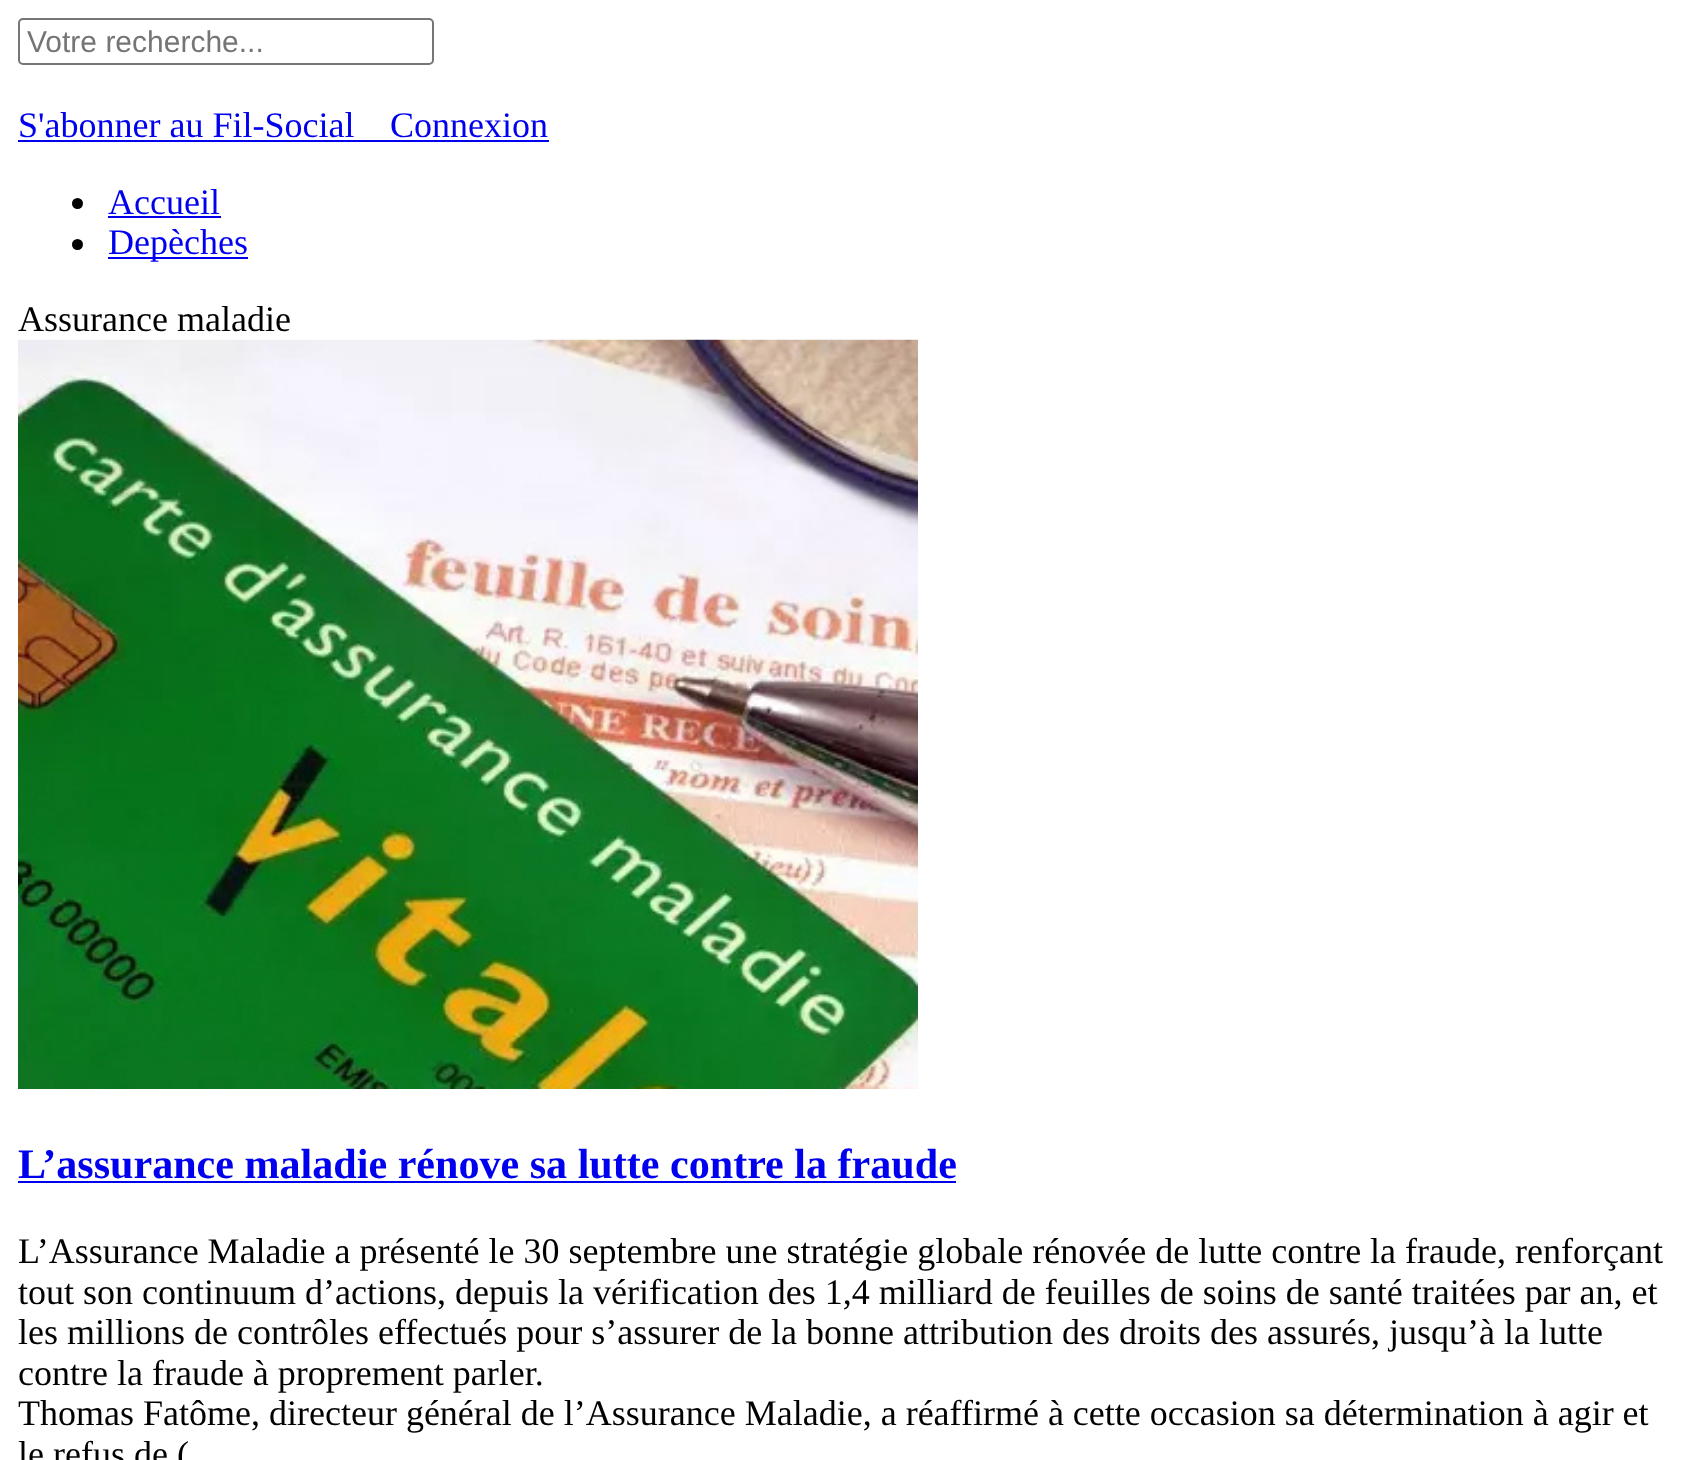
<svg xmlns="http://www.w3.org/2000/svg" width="1683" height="1460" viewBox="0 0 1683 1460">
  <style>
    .t1 { font: 30px Liberation Sans; fill: #757575; }
    .t2 { font: 36px Liberation Serif; fill: #00e; }
    .t3 { font: 36px Liberation Serif; fill: #000; }
    .t4 { font: bold 42.1px Liberation Serif; fill: #00e; }
  </style>
  <rect width="100%" height="100%" fill="#fff"/>
  <rect x="19" y="19" width="414" height="45" rx="4" fill="none" stroke="#767676" stroke-width="2"/>
  <text x="27" y="52" class="t1">Votre recherche...</text>
  <text x="18" y="137" class="t2">S'abonner au Fil-Social</text>
  <rect x="18" y="140" width="531" height="2" fill="#00e"/>
  <text x="390" y="137" class="t2">Connexion</text>
  <circle cx="77.5" cy="203.5" r="5.5" fill="#000"/>
  <text x="108" y="214" class="t2">Accueil</text>
  <rect x="108" y="216" width="113" height="2" fill="#00e"/>
  <circle cx="77.5" cy="244.5" r="5.5" fill="#000"/>
  <rect x="108" y="257" width="140" height="2" fill="#00e"/>
  <text x="108" y="254" class="t2">Depèches</text>
  <text x="18" y="331" class="t3">Assurance maladie</text>
  <image x="18" y="339" width="900" height="750" href="images/1.png"/>
  <text x="18" y="1178" class="t4">L’assurance maladie rénove sa lutte contre la fraude</text>
  <rect x="18" y="1181" width="938" height="2" fill="#00e"/>
  <text x="18" y="1263" class="t3">L’Assurance Maladie a présenté le 30 septembre une stratégie globale rénovée de lutte contre la fraude, renforçant</text>
  <text x="18" y="1304" class="t3">tout son continuum d’actions, depuis la vérification des 1,4 milliard de feuilles de soins de santé traitées par an, et</text>
  <text x="18" y="1344" class="t3">les millions de contrôles effectués pour s’assurer de la bonne attribution des droits des assurés, jusqu’à la lutte</text>
  <text x="18" y="1385" class="t3">contre la fraude à proprement parler.</text>
  <text x="18" y="1425" class="t3">Thomas Fatôme, directeur général de l’Assurance Maladie, a réaffirmé à cette occasion sa détermination à agir et</text>
  <text x="18" y="1466" class="t3">le refus de (</text>
</svg>
